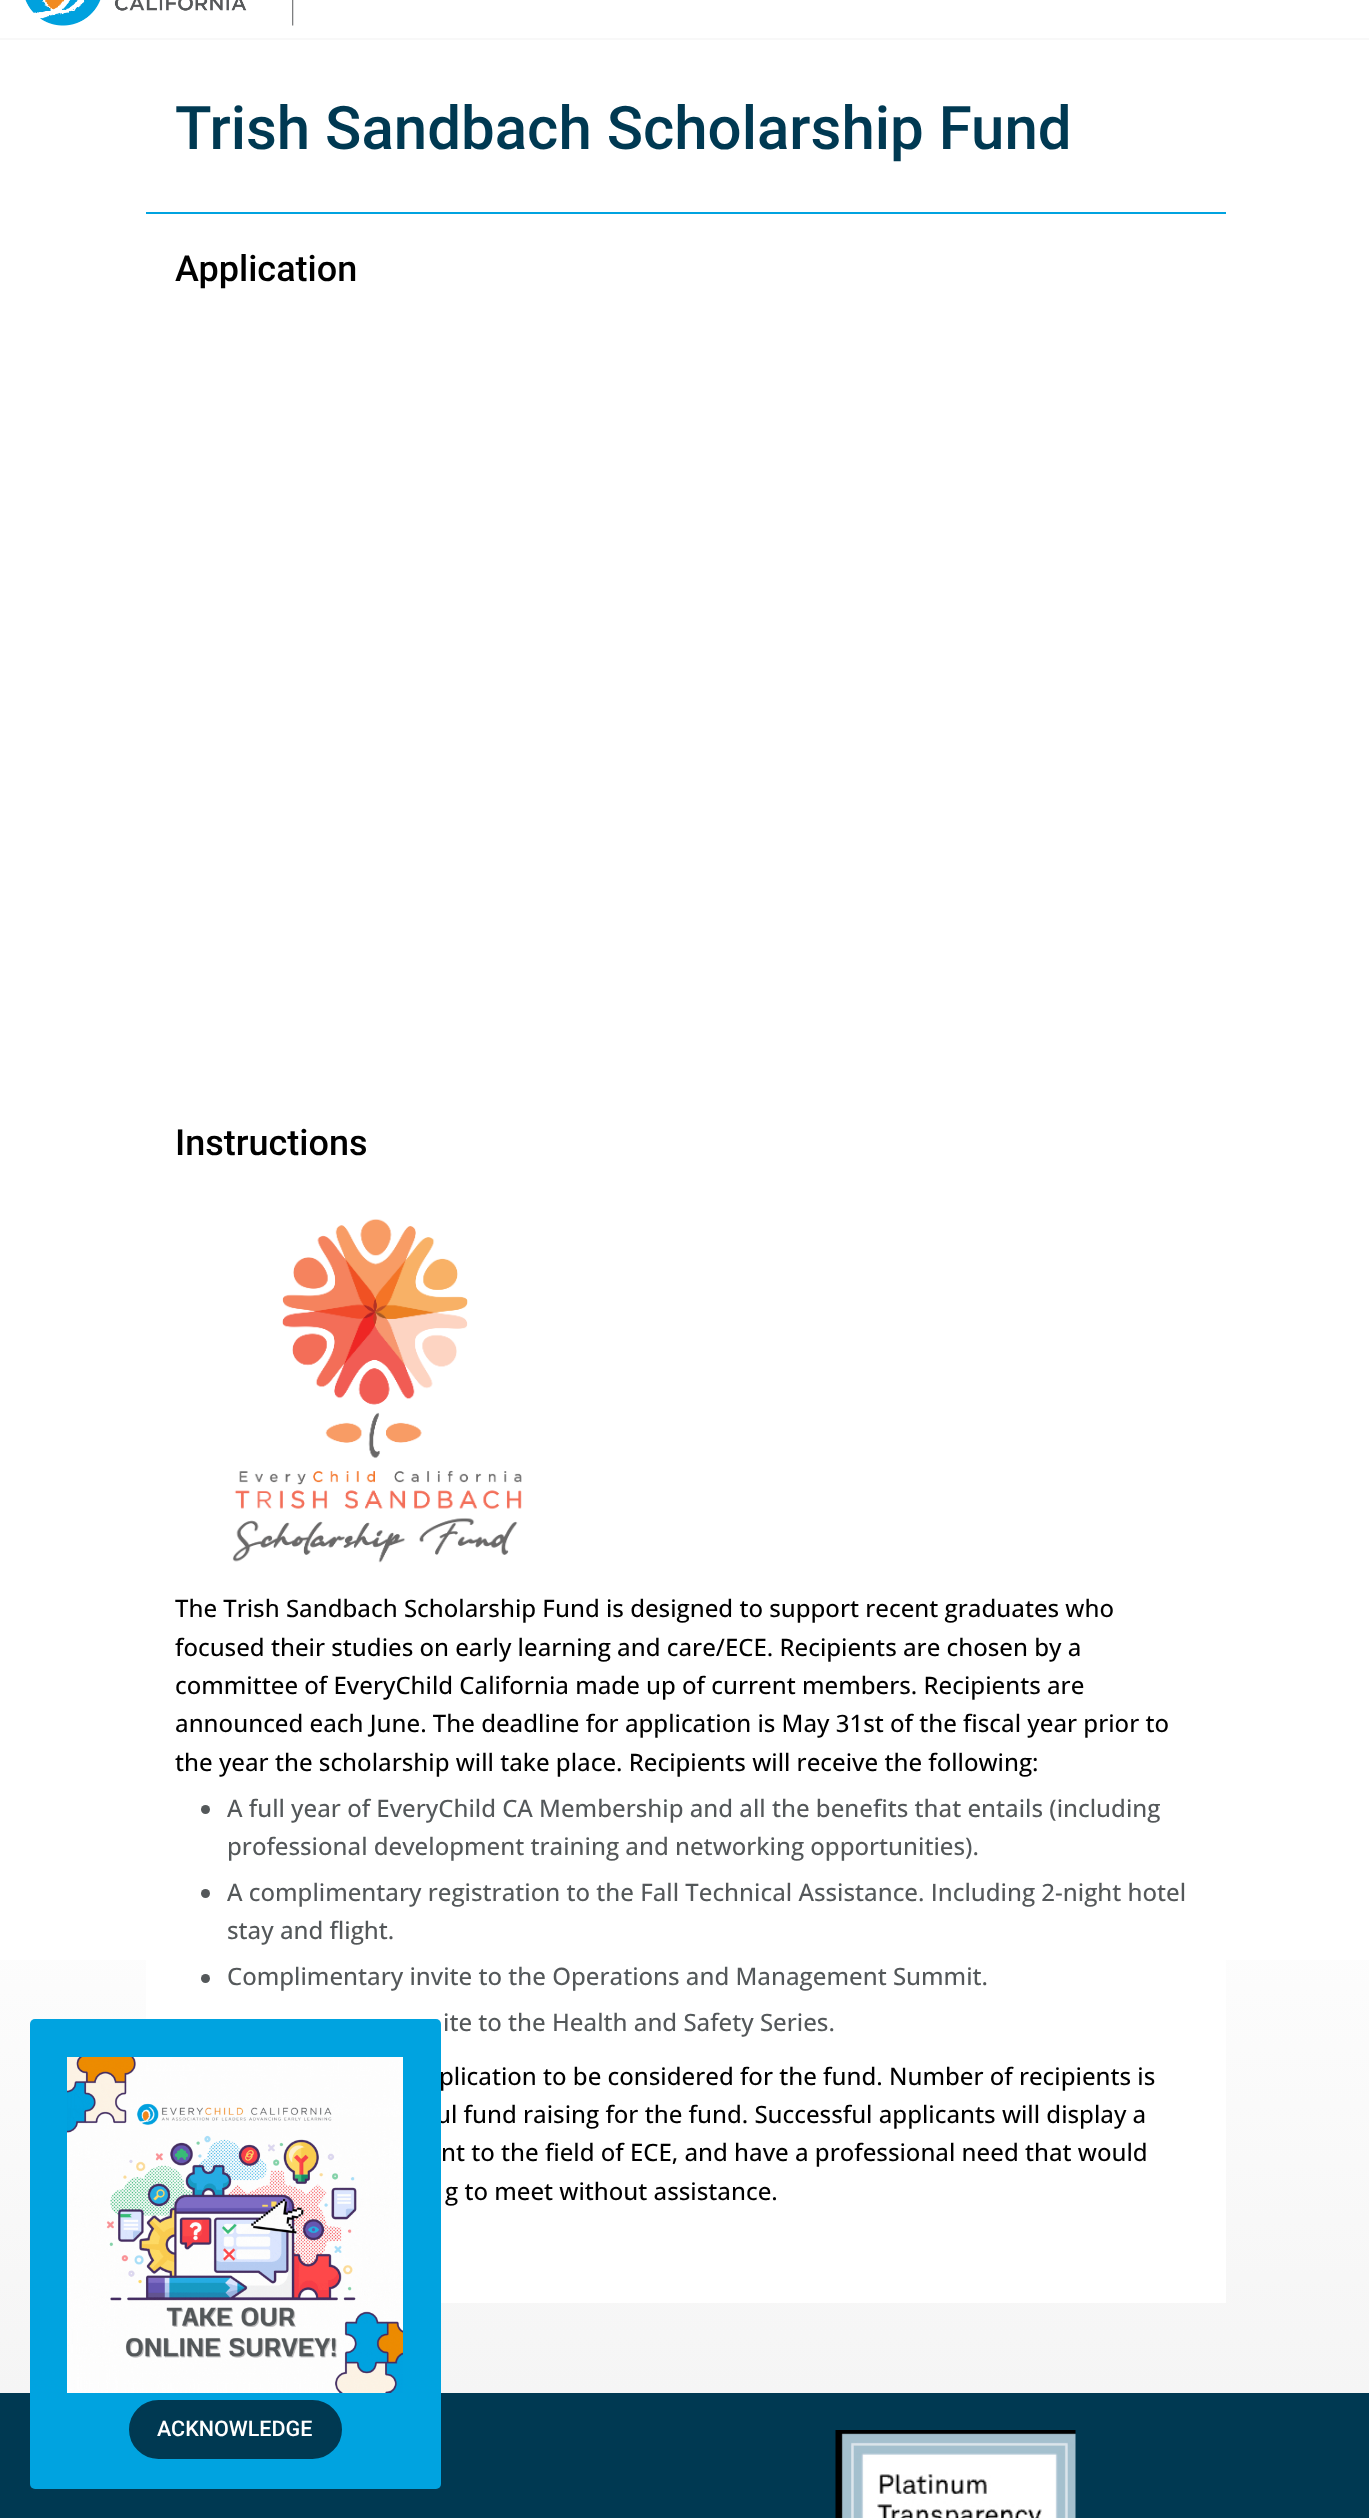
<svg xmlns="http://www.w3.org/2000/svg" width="1369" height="2518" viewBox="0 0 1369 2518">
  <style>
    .t1 { font: 500 60px Roboto; fill: #003952; }
    .t2 { font: 500 36px Roboto; fill: #000; }
    .t3 { font: 500 24px Open Sans; fill: #000; }
    .t4 { font: 500 24px Open Sans; fill: #54585a; }
    .t5 { font: 500 21.5px Roboto; fill: #fff; }
  </style>
  <defs>
    <linearGradient id="g1" gradientUnits="userSpaceOnUse" x1="685" y1="84" x2="685" y2="2393"><stop offset="0" stop-color="#fff"/><stop offset="0.75" stop-color="#fff"/><stop offset="1" stop-color="#f5f5f5"/></linearGradient>
  </defs>
  <rect width="100%" height="100%" fill="#fff"/>
  <rect x="0" y="38" width="1369" height="2" fill="#f8f8f8"/>
  <image x="25" y="0" width="269" height="26" href="images/1.png"/>
  <rect x="0" y="1960" width="1369" height="433" fill="url(#g1)"/>
  <rect x="146" y="212" width="1080" height="2" fill="#00a3e0"/>
  <text x="175" y="149" class="t1">Trish Sandbach Scholarship Fund</text>
  <rect x="146" y="1960" width="1080" height="343" fill="#fff"/>
  <text x="175" y="281" class="t2">Application</text>
  <text x="175" y="1155" class="t2">Instructions</text>
  <image x="232" y="1219" width="290" height="344" href="images/2.png"/>
  <text x="175" y="1617" class="t3">The Trish Sandbach Scholarship Fund is designed to support recent graduates who</text>
  <text x="175" y="1656" class="t3">focused their studies on early learning and care/ECE. Recipients are chosen by a</text>
  <text x="175" y="1694" class="t3">committee of EveryChild California made up of current members. Recipients are</text>
  <text x="175" y="1732" class="t3">announced each June. The deadline for application is May 31st of the fiscal year prior to</text>
  <text x="175" y="1771" class="t3">the year the scholarship will take place. Recipients will receive the following:</text>
  <circle cx="205.5" cy="1809.5" r="4.5" fill="#54585a"/>
  <text x="227" y="1817" class="t4">A full year of EveryChild CA Membership and all the benefits that entails (including</text>
  <text x="227" y="1855" class="t4">professional development training and networking opportunities).</text>
  <circle cx="205.5" cy="1893.5" r="4.5" fill="#54585a"/>
  <text x="227" y="1901" class="t4">A complimentary registration to the Fall Technical Assistance. Including 2-night hotel</text>
  <text x="227" y="1939" class="t4">stay and flight.</text>
  <circle cx="205.5" cy="1978.5" r="4.5" fill="#54585a"/>
  <text x="227" y="1985" class="t4">Complimentary invite to the Operations and Management Summit.</text>
  <text x="443" y="2031" class="t4">ite to the Health and Safety Series.</text>
  <text x="439" y="2085" class="t3">plication to be considered for the fund. Number of recipients is</text>
  <text x="436" y="2123" class="t3">ul fund raising for the fund. Successful applicants will display a</text>
  <text x="441" y="2161" class="t3">nt to the field of ECE, and have a professional need that would</text>
  <text x="445" y="2200" class="t3">g to meet without assistance.</text>
  <rect x="0" y="2393" width="1369" height="125" fill="#003952"/>
  <image x="835" y="2430" width="241" height="88" href="images/3.png"/>
  <rect x="30" y="2019" width="411" height="470" rx="5" fill="#00a3e0"/>
  <image x="67" y="2057" width="336" height="336" href="images/4.png"/>
  <rect x="130.5" y="2401.5" width="210" height="56" rx="28" fill="#003952" stroke="#003952" stroke-width="3"/>
  <text x="157" y="2436" class="t5">ACKNOWLEDGE</text>
</svg>
